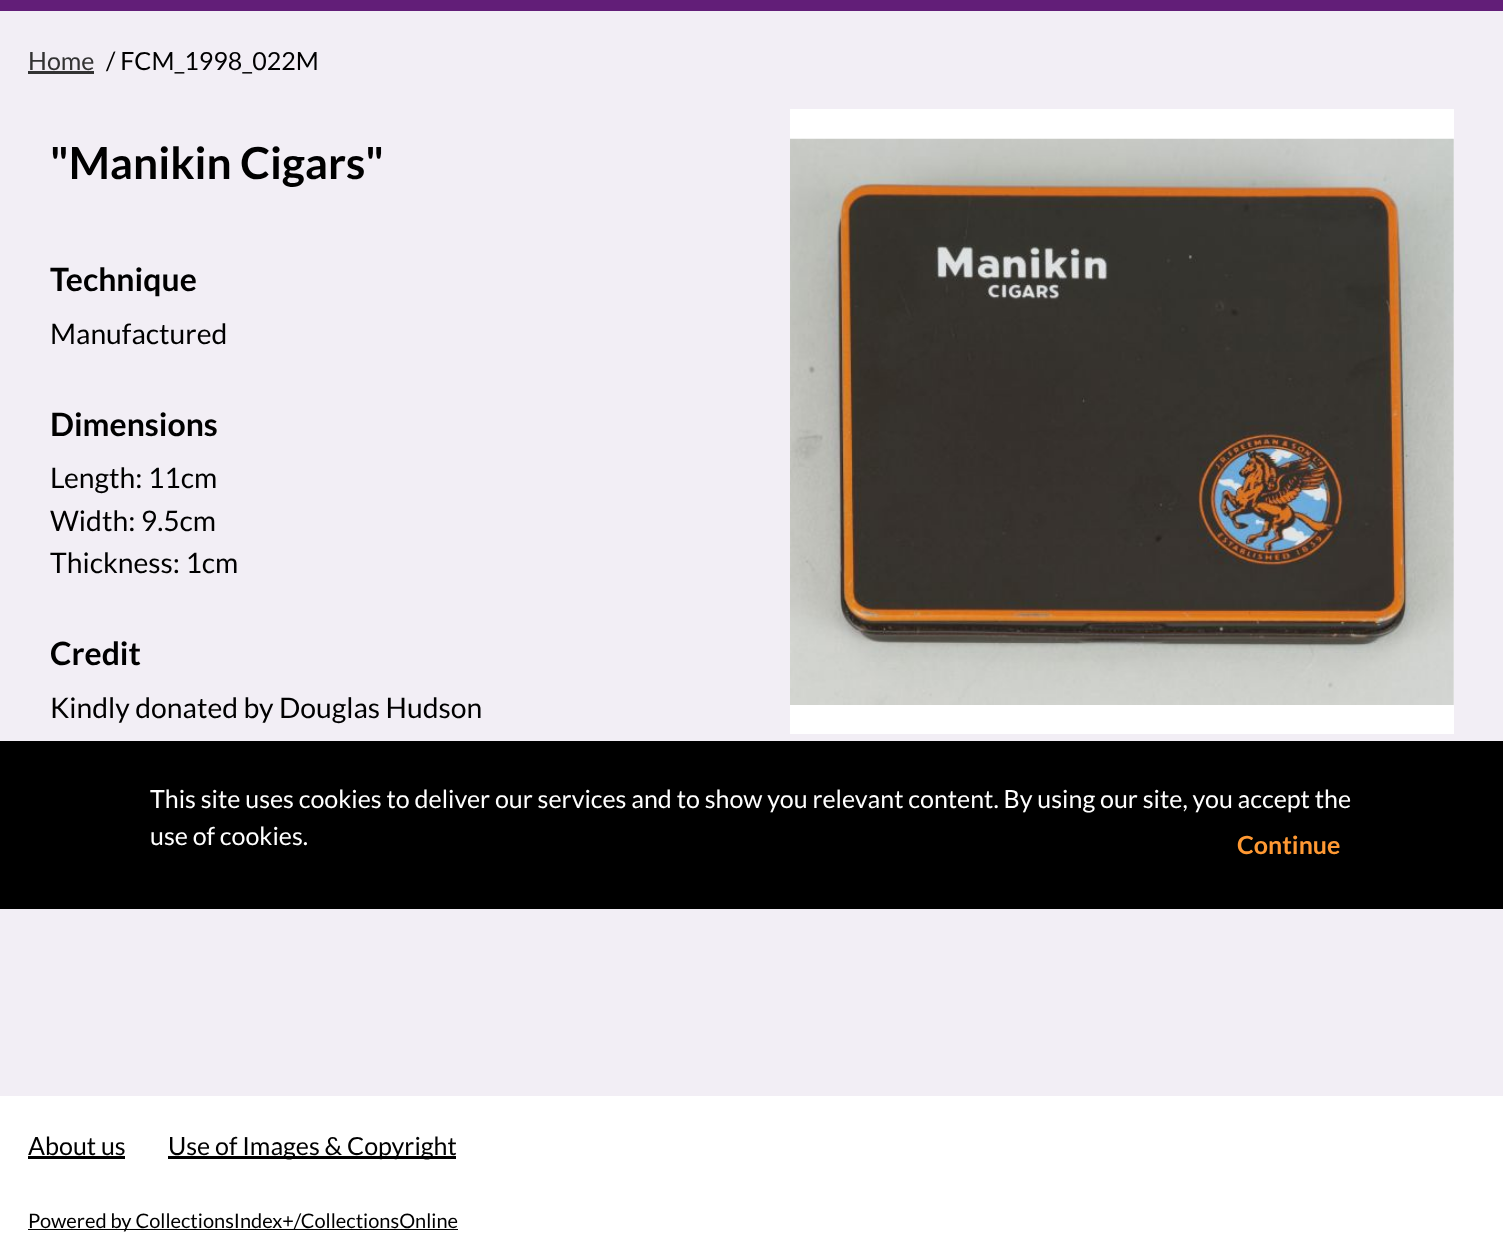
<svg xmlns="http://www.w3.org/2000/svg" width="1503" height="1238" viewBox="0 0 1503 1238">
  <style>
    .t1 { font: 25px Lato; fill: #333; }
    .t2 { font: 25px Lato; fill: #000; }
    .t3 { font: bold 44.25px Lato; fill: #000; }
    .t4 { font: bold 32px Lato; fill: #000; }
    .t5 { font: 28.3px Lato; fill: #000; }
    .t6 { font: 20px Lato; fill: #000; }
    .t7 { font: 25px Lato; fill: #fff; }
    .t8 { font: bold 25px Lato; fill: #f93; }
  </style>
  <rect width="100%" height="100%" fill="#f2eef5"/>
  <rect x="0" y="0" width="1503" height="11" fill="#621e78"/>
  <text x="28" y="70" class="t1">Home</text>
  <rect x="28" y="71" width="66" height="3" fill="#333"/>
  <text x="106" y="70" class="t2">/ FCM_1998_022M</text>
  <text x="50" y="179" class="t3">"Manikin Cigars"</text>
  <text x="50" y="291" class="t4">Technique</text>
  <text x="50" y="344" class="t5">Manufactured</text>
  <text x="50" y="436" class="t4">Dimensions</text>
  <text x="50" y="488" class="t5">Length: 11cm</text>
  <text x="50" y="531" class="t5">Width: 9.5cm</text>
  <text x="50" y="573" class="t5">Thickness: 1cm</text>
  <text x="50" y="665" class="t4">Credit</text>
  <text x="50" y="718" class="t5">Kindly donated by Douglas Hudson</text>
  <rect x="790" y="109" width="664" height="625" fill="#fff"/>
  <image x="790" y="138" width="664" height="567" href="images/1.png"/>
  <rect x="0" y="1096" width="1503" height="142" fill="#fff"/>
  <text x="28" y="1155" class="t2">About us</text>
  <rect x="28" y="1156" width="97" height="3" fill="#000"/>
  <rect x="168" y="1156" width="288" height="3" fill="#000"/>
  <text x="168" y="1155" class="t2">Use of Images &amp; Copyright</text>
  <rect x="28" y="1229" width="430" height="1" fill="#000"/>
  <text x="28" y="1228" class="t6">Powered by CollectionsIndex+/CollectionsOnline</text>
  <rect x="0" y="741" width="1503" height="168" fill="#000"/>
  <text x="150" y="808" class="t7">This site uses cookies to deliver our services and to show you relevant content. By using our site, you accept the</text>
  <text x="150" y="845" class="t7">use of cookies.</text>
  <text x="1237" y="854" class="t8">Continue</text>
</svg>
